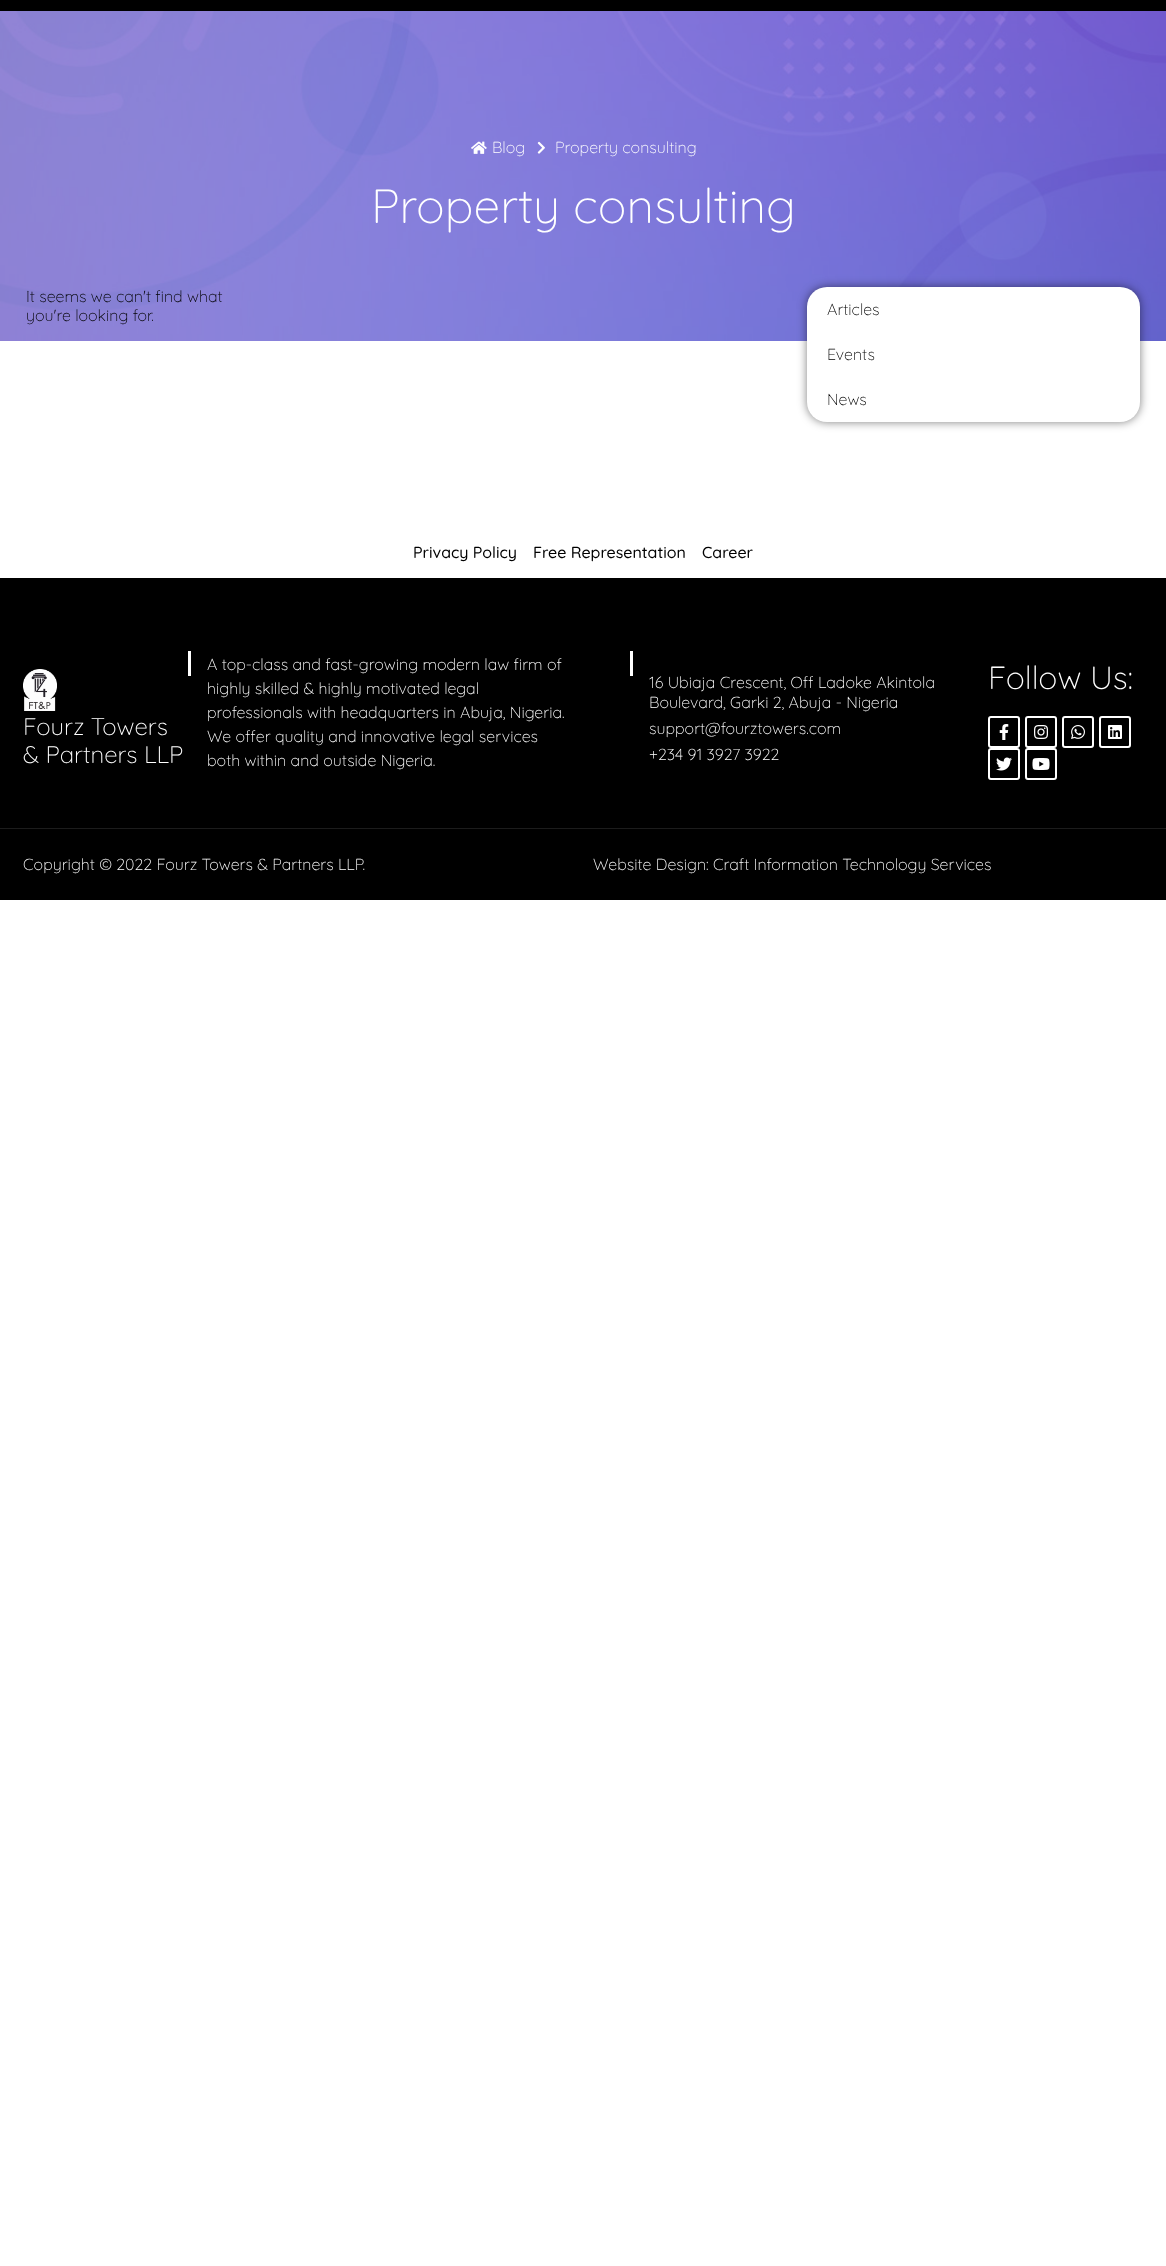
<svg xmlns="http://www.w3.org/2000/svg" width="1166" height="2266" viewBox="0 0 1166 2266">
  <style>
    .t1 { font: 300 16px Quicksand; fill: #fff; }
    .t2 { font: 300 48px Quicksand; fill: #fff; }
    .t3 { font: 300 16px Quicksand; fill: #000; }
    .t4 { font: 500 16px Quicksand; fill: #000; }
    .t5 { font: 300 24px Quicksand; fill: #fff; }
    .t6 { font: 300 32px Quicksand; fill: #fff; }
  </style>
  <rect width="100%" height="100%" fill="#fff"/>
  <rect x="0" y="0" width="1166" height="11" fill="#000"/>
  <image x="0" y="11" width="1166" height="330" href="images/1.png"/>
  <image x="471" y="141" width="16" height="13" href="images/2.png"/>
  <text x="492" y="153" class="t1">Blog</text>
  <image x="537" y="141" width="8" height="13" href="images/3.png"/>
  <text x="555" y="153" class="t1">Property consulting</text>
  <text x="371" y="223" class="t2">Property consulting</text>
  <text x="26" y="302" class="t3">It seems we can't find what</text>
  <text x="26" y="321" class="t3">you're looking for.</text>
  <rect x="807" y="287" width="333" height="135" rx="20" fill="#00000080" filter="blur(5px)"/>
  <rect x="807" y="287" width="333" height="135" rx="20" fill="#fff"/>
  <text x="827" y="315" class="t3">Articles</text>
  <text x="827" y="360" class="t3">Events</text>
  <text x="827" y="405" class="t3">News</text>
  <text x="413" y="558" class="t4">Privacy Policy</text>
  <text x="533" y="558" class="t4">Free Representation</text>
  <text x="702" y="558" class="t4">Career</text>
  <rect x="0" y="578" width="1166" height="250" fill="#000"/>
  <image x="23" y="669" width="34" height="42" href="images/4.png"/>
  <text x="23" y="735" class="t5">Fourz Towers</text>
  <text x="23" y="763" class="t5">&amp; Partners LLP</text>
  <rect x="188" y="651" width="3" height="25" fill="#fff"/>
  <text x="207" y="670" class="t1">A top-class and fast-growing modern law firm of</text>
  <text x="207" y="694" class="t1">highly skilled &amp; highly motivated legal</text>
  <text x="207" y="718" class="t1">professionals with headquarters in Abuja, Nigeria.</text>
  <text x="207" y="742" class="t1">We offer quality and innovative legal services</text>
  <text x="207" y="766" class="t1">both within and outside Nigeria.</text>
  <rect x="630" y="651" width="3" height="25" fill="#fff"/>
  <text x="649" y="688" class="t1">16 Ubiaja Crescent, Off Ladoke Akintola</text>
  <text x="649" y="708" class="t1">Boulevard, Garki 2, Abuja - Nigeria</text>
  <text x="649" y="734" class="t1">support@fourztowers.com</text>
  <text x="649" y="760" class="t1">+234 91 3927 3922</text>
  <text x="988" y="689" class="t6">Follow Us:</text>
  <rect x="989" y="717" width="30" height="30" rx="2" fill="none" stroke="#fff" stroke-width="2"/>
  <image x="999" y="724" width="10" height="16" href="images/5.png"/>
  <rect x="1026" y="717" width="30" height="30" rx="2" fill="none" stroke="#fff" stroke-width="2"/>
  <image x="1034" y="725" width="14" height="14" href="images/6.png"/>
  <rect x="1063" y="717" width="30" height="30" rx="2" fill="none" stroke="#fff" stroke-width="2"/>
  <image x="1071" y="725" width="14" height="14" href="images/7.png"/>
  <rect x="1100" y="717" width="30" height="30" rx="2" fill="none" stroke="#fff" stroke-width="2"/>
  <image x="1108" y="725" width="14" height="14" href="images/8.png"/>
  <rect x="989" y="749" width="30" height="30" rx="2" fill="none" stroke="#fff" stroke-width="2"/>
  <image x="996" y="757" width="16" height="14" href="images/9.png"/>
  <rect x="1026" y="749" width="30" height="30" rx="2" fill="none" stroke="#fff" stroke-width="2"/>
  <image x="1032" y="758" width="18" height="12" href="images/10.png"/>
  <rect x="0" y="829" width="1166" height="71" fill="#000"/>
  <rect x="0" y="828" width="1166" height="1" fill="#1c1c1c"/>
  <text x="23" y="870" class="t1">Copyright © 2022 Fourz Towers &amp; Partners LLP.</text>
  <text x="593" y="870" class="t1">Website Design: Craft Information Technology Services</text>
</svg>
